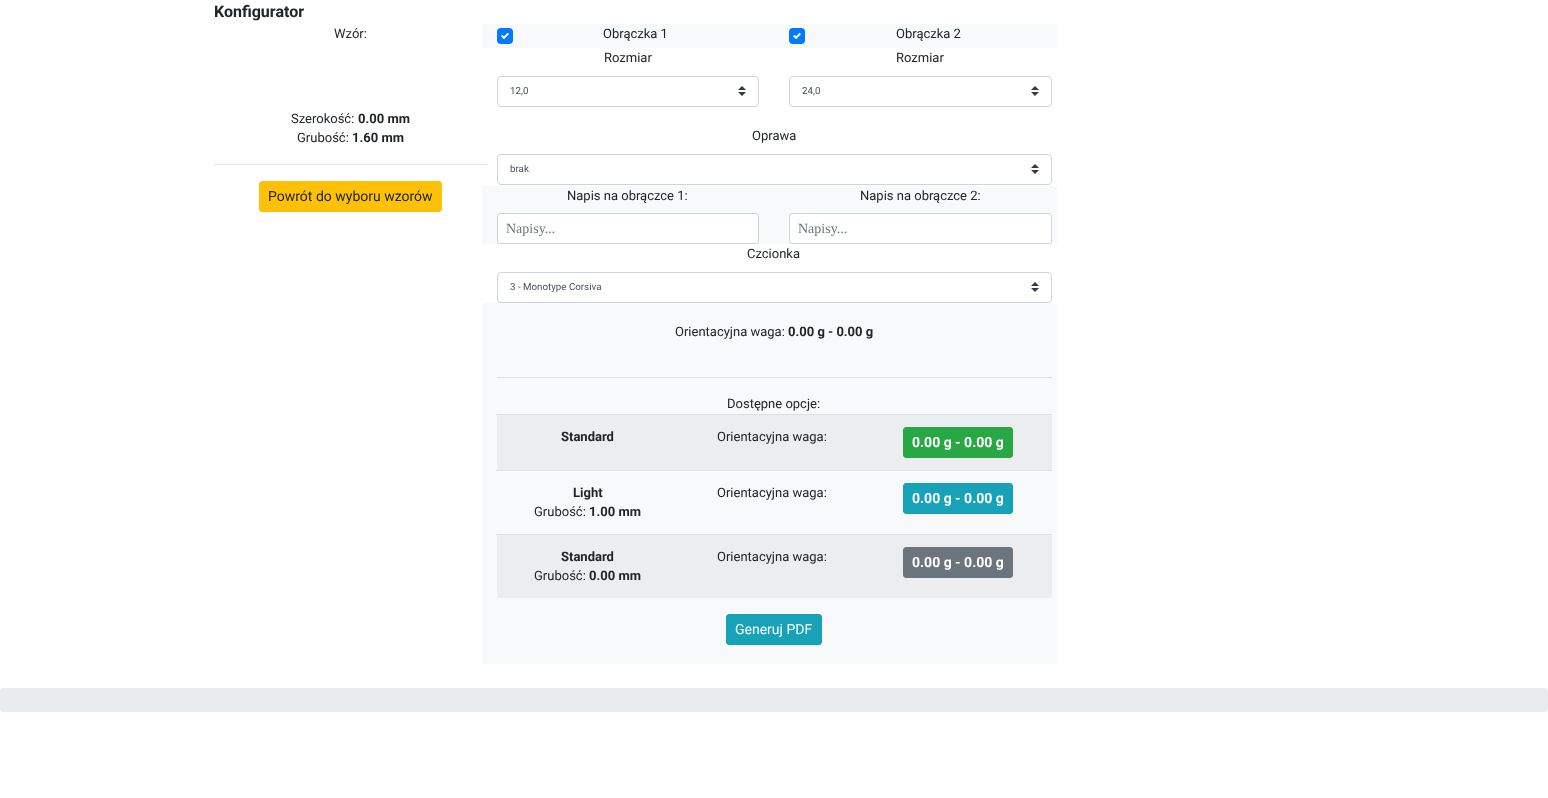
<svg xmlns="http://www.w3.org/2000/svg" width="1548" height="798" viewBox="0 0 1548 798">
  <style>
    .t1 { font: bold 16px Roboto; fill: #212529; }
    .t2 { font: 13px Roboto; fill: #212529; }
    .t3 { font: bold 13px Roboto; fill: #212529; }
    .t4 { font: 14px Roboto; fill: #212529; }
    .t5 { font: 9.75px Roboto; fill: #495057; }
    .t6 { font: 14px Liberation Serif; fill: #6c757d; }
    .t7 { font: bold 14px Roboto; fill: #fff; }
    .t8 { font: 14px Roboto; fill: #fff; }
  </style>
  <rect width="100%" height="100%" fill="#fff"/>
  <text x="214" y="17" class="t1">Konfigurator</text>
  <text x="334" y="38" class="t2">Wzór:</text>
  <text x="291" y="123" class="t2">Szerokość:</text>
  <text x="358" y="123" class="t3">0.00 mm</text>
  <text x="297" y="142" class="t2">Grubość:</text>
  <text x="352" y="142" class="t3">1.60 mm</text>
  <rect x="214" y="164" width="273" height="1" fill="#e6e6e6"/>
  <rect x="259.5" y="181.5" width="182" height="30" rx="2.5" fill="#ffc107" stroke="#ffc107"/>
  <text x="268" y="201" class="t4">Powrót do wyboru wzorów</text>
  <rect x="482" y="24" width="575" height="24" fill="#f8f9fa"/>
  <rect x="497" y="28" width="16" height="16" rx="4" fill="#007bff"/>
  <text x="603" y="38" class="t2">Obrączka 1</text>
  <image x="501" y="32" width="8" height="8" href="images/1.png"/>
  <rect x="789" y="28" width="16" height="16" rx="4" fill="#007bff"/>
  <text x="896" y="38" class="t2">Obrączka 2</text>
  <image x="793" y="32" width="8" height="8" href="images/1.png"/>
  <text x="604" y="62" class="t2">Rozmiar</text>
  <image x="738" y="86" width="8" height="10" href="images/2.png"/>
  <rect x="497.5" y="76.5" width="261" height="30" rx="3.5" fill="none" stroke="#ced4da"/>
  <text x="510" y="94" class="t5">12,0</text>
  <text x="896" y="62" class="t2">Rozmiar</text>
  <image x="1031" y="86" width="8" height="10" href="images/2.png"/>
  <rect x="789.5" y="76.5" width="262" height="30" rx="3.5" fill="none" stroke="#ced4da"/>
  <text x="802" y="94" class="t5">24,0</text>
  <text x="752" y="140" class="t2">Oprawa</text>
  <image x="1031" y="164" width="8" height="10" href="images/2.png"/>
  <rect x="497.5" y="154.5" width="554" height="30" rx="3.5" fill="none" stroke="#ced4da"/>
  <text x="510" y="172" class="t5">brak</text>
  <rect x="482" y="186" width="575" height="58" fill="#f8f9fa"/>
  <text x="567" y="200" class="t2">Napis na obrączce 1:</text>
  <rect x="497.5" y="213.5" width="261" height="30" rx="2.5" fill="#fff" stroke="#ced4da"/>
  <text x="506" y="233" class="t6">Napisy...</text>
  <text x="860" y="200" class="t2">Napis na obrączce 2:</text>
  <rect x="789.5" y="213.5" width="262" height="30" rx="2.5" fill="#fff" stroke="#ced4da"/>
  <text x="798" y="233" class="t6">Napisy...</text>
  <text x="747" y="258" class="t2">Czcionka</text>
  <image x="1031" y="282" width="8" height="10" href="images/2.png"/>
  <rect x="497.5" y="272.5" width="554" height="30" rx="3.5" fill="none" stroke="#ced4da"/>
  <text x="510" y="290" class="t5">3 - Monotype Corsiva</text>
  <rect x="482" y="303" width="575" height="361" fill="#f8f9fa"/>
  <text x="675" y="336" class="t2">Orientacyjna waga:</text>
  <text x="788" y="336" class="t3">0.00 g - 0.00 g</text>
  <rect x="497" y="377" width="555" height="1" fill="#dfe0e1"/>
  <text x="727" y="408" class="t2">Dostępne opcje:</text>
  <rect x="497" y="415" width="555" height="55" fill="#ecedee"/>
  <text x="561" y="441" class="t3">Standard</text>
  <text x="717" y="441" class="t2">Orientacyjna waga:</text>
  <rect x="496" y="414" width="556" height="1" fill="#dee2e6"/>
  <rect x="903.5" y="427.5" width="109" height="30" rx="2.5" fill="#28a745" stroke="#28a745"/>
  <text x="912" y="447" class="t7">0.00 g - 0.00 g</text>
  <text x="573" y="497" class="t3">Light</text>
  <text x="534" y="516" class="t2">Grubość:</text>
  <text x="589" y="516" class="t3">1.00 mm</text>
  <text x="717" y="497" class="t2">Orientacyjna waga:</text>
  <rect x="496" y="470" width="556" height="1" fill="#dee2e6"/>
  <rect x="903.5" y="483.5" width="109" height="30" rx="2.5" fill="#17a2b8" stroke="#17a2b8"/>
  <text x="912" y="503" class="t7">0.00 g - 0.00 g</text>
  <rect x="497" y="535" width="555" height="63" fill="#ecedee"/>
  <text x="561" y="561" class="t3">Standard</text>
  <text x="534" y="580" class="t2">Grubość:</text>
  <text x="589" y="580" class="t3">0.00 mm</text>
  <text x="717" y="561" class="t2">Orientacyjna waga:</text>
  <rect x="496" y="534" width="556" height="1" fill="#dee2e6"/>
  <rect x="903.5" y="547.5" width="109" height="30" rx="2.5" fill="#6c757d" stroke="#6c757d"/>
  <text x="912" y="567" class="t7">0.00 g - 0.00 g</text>
  <rect x="726.5" y="614.5" width="95" height="30" rx="2.5" fill="#17a2b8" stroke="#17a2b8"/>
  <text x="735" y="634" class="t8">Generuj PDF</text>
  <rect x="0" y="688" width="1548" height="24" rx="4" fill="#e9ecef"/>
</svg>
